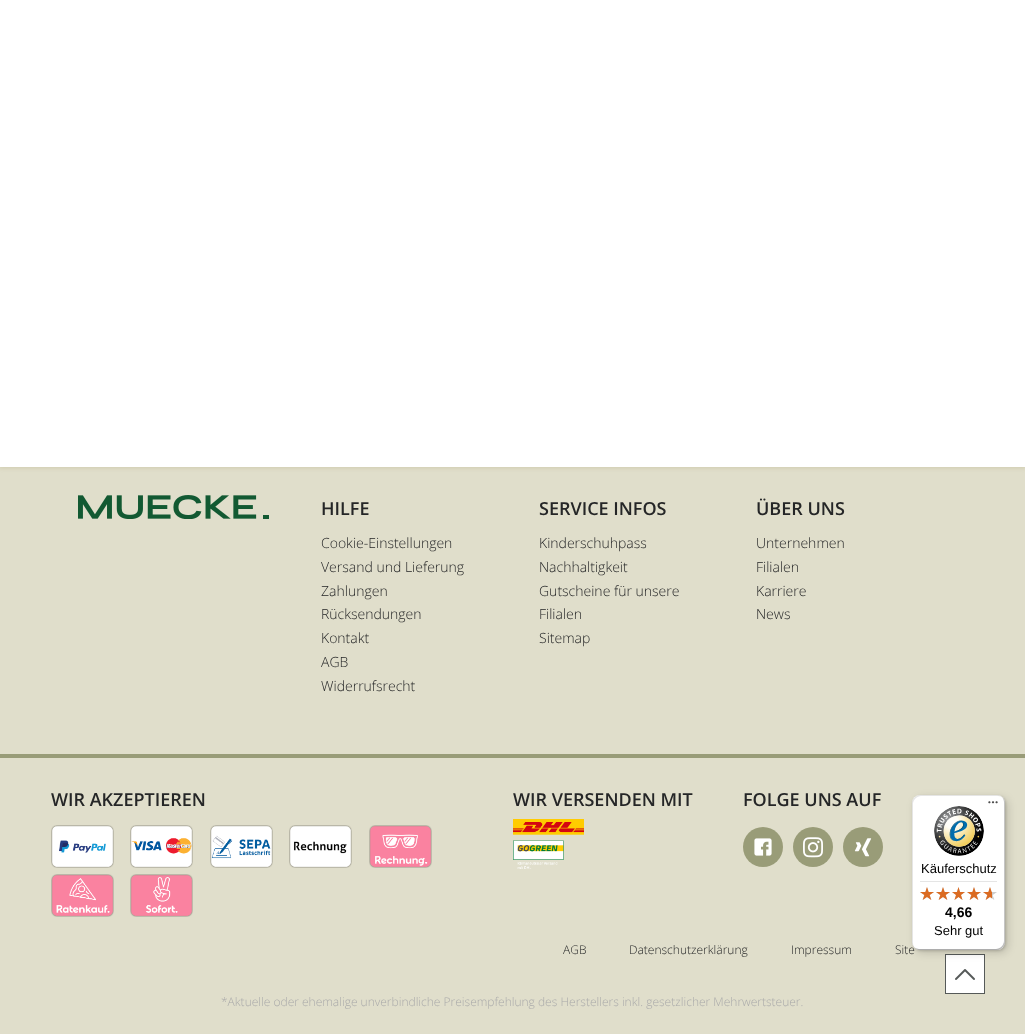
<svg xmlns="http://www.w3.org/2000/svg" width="1025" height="1034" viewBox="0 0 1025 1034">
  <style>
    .t1 { font: 600 18px Open Sans; fill: #252627; }
    .t2 { font: 300 14px Open Sans; fill: #252627; }
    .t3 { font: 300 12px Open Sans; fill: #252627; }
    .t4 { font: 300 12px Open Sans; fill: #aaa; }
    .t5 { font: 13px Liberation Sans; fill: #000; }
    .t6 { font: bold 14px Liberation Sans; fill: #000; }
  </style>
  <rect width="100%" height="100%" fill="#e0decb"/>
  <rect x="-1" y="-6" width="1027" height="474" fill="#cfccae" filter="blur(2px)"/>
  <rect x="0" y="0" width="1025" height="467" fill="#fff"/>
  <rect x="0" y="754" width="1025" height="4" fill="#999c78"/>
  <image x="78" y="495" width="191" height="24" href="images/1.png"/>
  <text x="321" y="515" class="t1">HILFE</text>
  <text x="321" y="548" class="t2">Cookie-Einstellungen</text>
  <text x="321" y="572" class="t2">Versand und Lieferung</text>
  <text x="321" y="596" class="t2">Zahlungen</text>
  <text x="321" y="619" class="t2">Rücksendungen</text>
  <text x="321" y="643" class="t2">Kontakt</text>
  <text x="321" y="667" class="t2">AGB</text>
  <text x="321" y="691" class="t2">Widerrufsrecht</text>
  <text x="539" y="515" class="t1">SERVICE INFOS</text>
  <text x="539" y="548" class="t2">Kinderschuhpass</text>
  <text x="539" y="572" class="t2">Nachhaltigkeit</text>
  <text x="539" y="596" class="t2">Gutscheine für unsere</text>
  <text x="539" y="619" class="t2">Filialen</text>
  <text x="539" y="643" class="t2">Sitemap</text>
  <text x="756" y="515" class="t1">ÜBER UNS</text>
  <text x="756" y="548" class="t2">Unternehmen</text>
  <text x="756" y="572" class="t2">Filialen</text>
  <text x="756" y="596" class="t2">Karriere</text>
  <text x="756" y="619" class="t2">News</text>
  <text x="51" y="806" class="t1">WIR AKZEPTIEREN</text>
  <image x="51" y="825" width="63" height="43" href="images/2.png"/>
  <image x="130" y="825" width="63" height="43" href="images/3.png"/>
  <image x="210" y="825" width="63" height="43" href="images/4.png"/>
  <image x="289" y="825" width="63" height="43" href="images/5.png"/>
  <image x="369" y="825" width="63" height="43" href="images/6.png"/>
  <image x="51" y="874" width="63" height="43" href="images/7.png"/>
  <image x="130" y="874" width="63" height="43" href="images/8.png"/>
  <text x="513" y="806" class="t1">WIR VERSENDEN MIT</text>
  <image x="513" y="819" width="71" height="50" href="images/9.png"/>
  <text x="743" y="806" class="t1">FOLGE UNS AUF</text>
  <circle cx="763" cy="847" r="20" fill="#999c78"/>
  <image x="754" y="838" width="18" height="18" href="images/10.png"/>
  <circle cx="813" cy="847" r="20" fill="#999c78"/>
  <image x="803" y="837" width="20" height="21" href="images/11.png"/>
  <circle cx="863" cy="847" r="20" fill="#999c78"/>
  <image x="854" y="838" width="18" height="19" href="images/12.png"/>
  <text x="563" y="954" class="t3">AGB</text>
  <text x="629" y="954" class="t3">Datenschutzerklärung</text>
  <text x="791" y="954" class="t3">Impressum</text>
  <text x="895" y="954" class="t3">Site</text>
  <text x="221" y="1006" class="t4">*Aktuelle oder ehemalige unverbindliche Preisempfehlung des Herstellers inkl. gesetzlicher Mehrwertsteuer.</text>
  <rect x="945.5" y="954.5" width="39" height="39" fill="#fff" stroke="#555958"/>
  <rect x="915" y="798" width="93" height="155" rx="8" fill="#00000026" filter="blur(4px)"/>
  <rect x="913" y="796" width="93" height="155" rx="8" fill="#00000026" filter="blur(1px)"/>
  <rect x="912" y="795" width="93" height="155" rx="8" fill="#fff"/>
  <path d="M921 796H998C1000 796 1002 797 1004 799C1002 797 1000 795 997 795H920C916 795 912 799 912 803V942C912 945 914 947 916 949C914 947 913 945 913 943V804C913 800 917 796 921 796Z" fill="#0000001a"/>
  <path d="M913 946C915 948 917 950 920 950H997C1001 950 1005 946 1005 942V803C1005 800 1003 798 1001 796C1003 798 1004 800 1004 802V941C1004 945 1000 949 996 949H919C917 949 915 948 913 946Z" fill="#00000033"/>
  <path d="M914 947C915 949 918 950 920 950H997C1001 950 1005 946 1005 942V803C1005 801 1004 798 1002 797C1003 798 1004 800 1004 802V941C1004 946 1001 949 996 949H919C917 949 915 948 914 947Z" fill="#32323233"/>
  <path d="M996 950H997C1001 950 1005 946 1005 942V803C1005 801 1004 798 1002 797C1003 798 1004 800 1004 802V942C1004 946 1001 950 996 950Z" fill="#ffffff4d"/>
  <image x="988" y="801" width="10" height="3" href="images/13.png"/>
  <image x="934" y="806" width="50" height="50" href="images/14.png"/>
  <text x="921" y="873" class="t5">Käuferschutz</text>
  <rect x="920" y="881" width="77" height="1" fill="#e5e5e5"/>
  <image x="920" y="887" width="14" height="13" href="images/15.png"/>
  <image x="936" y="887" width="14" height="13" href="images/15.png"/>
  <image x="952" y="887" width="13" height="13" href="images/16.png"/>
  <image x="967" y="887" width="14" height="13" href="images/15.png"/>
  <image x="983" y="887" width="14" height="13" href="images/15.png"/>
  <image x="920" y="887" width="14" height="13" href="images/17.png"/>
  <image x="936" y="887" width="14" height="13" href="images/17.png"/>
  <image x="952" y="887" width="13" height="13" href="images/18.png"/>
  <image x="967" y="887" width="14" height="13" href="images/17.png"/>
  <image x="983" y="887" width="9" height="13" href="images/19.png"/>
  <text x="945" y="917" class="t6">4,66</text>
  <text x="934" y="935" class="t5">Sehr gut</text>
  <image x="955" y="969" width="20" height="11" href="images/20.png"/>
</svg>
